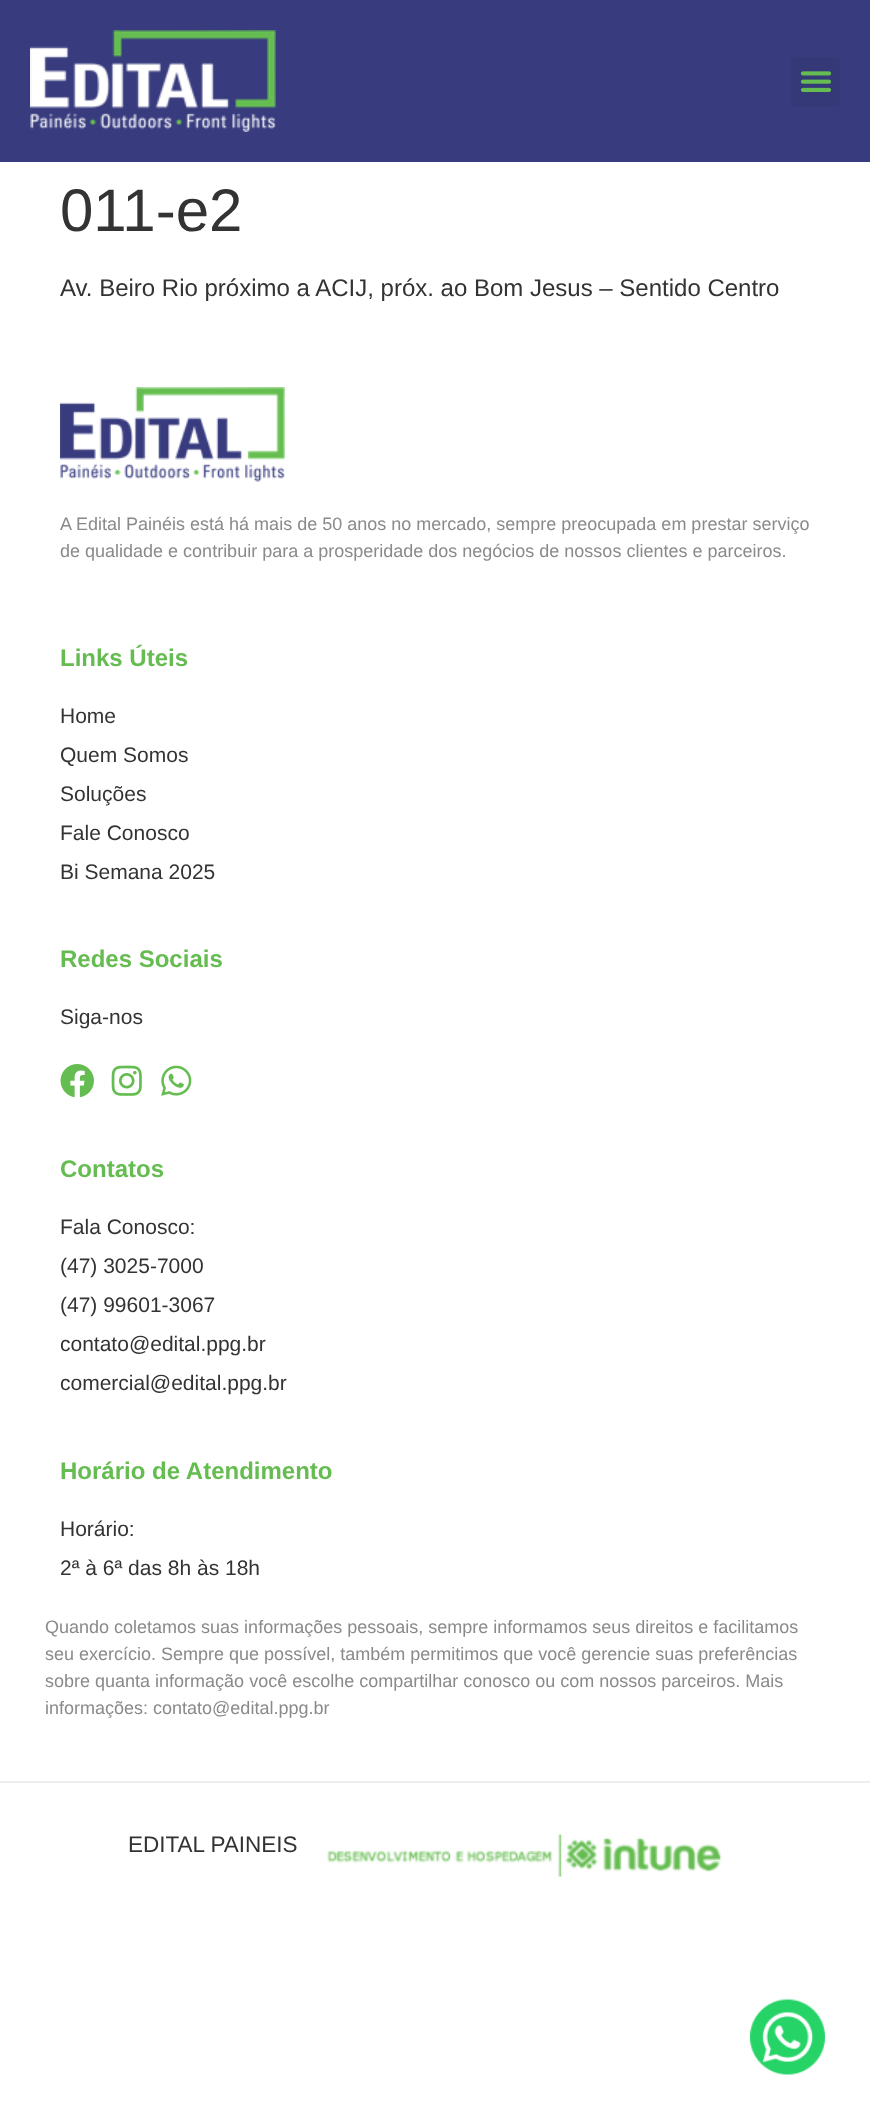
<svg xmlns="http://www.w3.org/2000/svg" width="870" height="2119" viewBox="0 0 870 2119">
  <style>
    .t1 { font: 60px Liberation Sans; fill: #333; }
    .t2 { font: 24px Liberation Sans; fill: #333; }
    .t3 { font: 18px Liberation Sans; fill: #8a8a8b; }
    .t4 { font: bold 24px Liberation Sans; fill: #65bc50; }
    .t5 { font: 21px Liberation Sans; fill: #333; }
    .t6 { font: 22.5px Liberation Sans; fill: #333; }
  </style>
  <rect width="100%" height="100%" fill="#fff"/>
  <rect x="0" y="0" width="870" height="162" fill="#383c7e"/>
  <image x="30" y="30" width="246" height="102" href="images/1.png"/>
  <rect x="791" y="57" width="49" height="50" rx="5" fill="#353978"/>
  <image x="800" y="71" width="32" height="21" href="images/2.png"/>
  <text x="60" y="231" class="t1">011-e2</text>
  <text x="60" y="296" class="t2">Av. Beiro Rio próximo a ACIJ, próx. ao Bom Jesus – Sentido Centro</text>
  <image x="60" y="387" width="225" height="95" href="images/3.png"/>
  <text x="60" y="530" class="t3">A Edital Painéis está há mais de 50 anos no mercado, sempre preocupada em prestar serviço</text>
  <text x="60" y="557" class="t3">de qualidade e contribuir para a prosperidade dos negócios de nossos clientes e parceiros.</text>
  <text x="60" y="666" class="t4">Links Úteis</text>
  <text x="60" y="723" class="t5">Home</text>
  <text x="60" y="762" class="t5">Quem Somos</text>
  <text x="60" y="801" class="t5">Soluções</text>
  <text x="60" y="840" class="t5">Fale Conosco</text>
  <text x="60" y="879" class="t5">Bi Semana 2025</text>
  <text x="60" y="967" class="t4">Redes Sociais</text>
  <text x="60" y="1024" class="t5">Siga-nos</text>
  <image x="60" y="1064" width="34" height="34" href="images/4.png"/>
  <image x="111" y="1065" width="31" height="31" href="images/5.png"/>
  <image x="161" y="1065" width="31" height="31" href="images/6.png"/>
  <text x="60" y="1177" class="t4">Contatos</text>
  <text x="60" y="1234" class="t5">Fala Conosco:</text>
  <text x="60" y="1273" class="t5">(47) 3025-7000</text>
  <text x="60" y="1312" class="t5">(47) 99601-3067</text>
  <text x="60" y="1351" class="t5">contato@edital.ppg.br</text>
  <text x="60" y="1390" class="t5">comercial@edital.ppg.br</text>
  <text x="60" y="1479" class="t4">Horário de Atendimento</text>
  <text x="60" y="1536" class="t5">Horário:</text>
  <text x="60" y="1575" class="t5">2ª à 6ª das 8h às 18h</text>
  <text x="45" y="1633" class="t3">Quando coletamos suas informações pessoais, sempre informamos seus direitos e facilitamos</text>
  <text x="45" y="1660" class="t3">seu exercício. Sempre que possível, também permitimos que você gerencie suas preferências</text>
  <text x="45" y="1687" class="t3">sobre quanta informação você escolhe compartilhar conosco ou com nossos parceiros. Mais</text>
  <text x="45" y="1714" class="t3">informações: contato@edital.ppg.br</text>
  <rect x="0" y="1781" width="870" height="2" fill="#ededed"/>
  <text x="128" y="1852" class="t6">EDITAL PAINEIS</text>
  <image x="327" y="1834" width="395" height="43" href="images/7.png"/>
  <image x="750" y="1999" width="75" height="76" href="images/8.png"/>
</svg>
